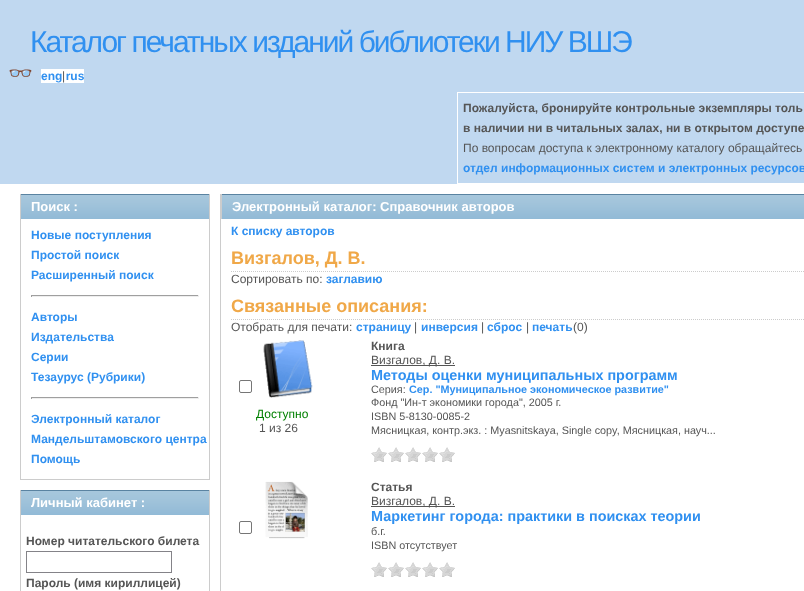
<svg xmlns="http://www.w3.org/2000/svg" width="804" height="591" viewBox="0 0 804 591">
  <style>
    .t1 { font: 30px Liberation Sans; letter-spacing: -2px; fill: #3090f0; }
    .t2 { font: bold 20px Noto Color Emoji; fill: #3090f0; }
    .t3 { font: bold 12px Liberation Sans; fill: #3090f0; }
    .t4 { font: 12px Liberation Sans; fill: #555; }
    .t5 { font: bold 12px Liberation Sans; fill: #555; }
    .t6 { font: bold 13px Liberation Sans; fill: #fff; }
    .t7 { font: bold 18px Liberation Sans; fill: #f0a848; }
    .t8 { font: 12px Liberation Sans; fill: #008000; }
    .t9 { font: bold 14.4px Liberation Sans; fill: #3090f0; }
    .t10 { font: 10.8px Liberation Sans; fill: #555; }
    .t11 { font: bold 10.8px Liberation Sans; fill: #3090f0; }
  </style>
  <rect width="100%" height="100%" fill="#fff"/>
  <rect x="0" y="0" width="804" height="184" fill="#c0d8f0"/>
  <text x="30" y="52" class="t1">Каталог печатных изданий библиотеки НИУ ВШЭ</text>
  <text x="8" y="80" class="t2">👓</text>
  <rect x="41" y="69" width="43" height="14" fill="#fff"/>
  <text x="41" y="80" class="t3">eng rus</text>
  <text x="62" y="80" class="t4">|</text>
  <rect x="457.5" y="92.5" width="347" height="91" fill="none" stroke="#fff"/>
  <text x="463" y="112" class="t5">Пожалуйста, бронируйте контрольные экземпляры толь</text>
  <text x="463" y="132" class="t5">в наличии ни в читальных залах, ни в открытом доступе</text>
  <text x="463" y="152" class="t4">По вопросам доступа к электронному каталогу обращайтесь</text>
  <text x="463" y="172" class="t3">отдел информационных систем и электронных ресурсов</text>
  <image x="21" y="194" width="188" height="25" href="images/1.png"/>
  <rect x="209" y="194" width="1" height="286" fill="#ccc"/>
  <rect x="20" y="194" width="1" height="25" fill="#ccc"/>
  <text x="31" y="211" class="t6">Поиск :</text>
  <rect x="20" y="479" width="190" height="1" fill="#ccc"/>
  <rect x="20" y="219" width="1" height="261" fill="#ccc"/>
  <text x="31" y="239" class="t3">Новые поступления</text>
  <text x="31" y="259" class="t3">Простой поиск</text>
  <text x="31" y="279" class="t3">Расширенный поиск</text>
  <rect x="31" y="295" width="168" height="1" fill="#9f9f9f"/>
  <rect x="198" y="295" width="1" height="2" fill="#eee"/>
  <rect x="31" y="296" width="168" height="1" fill="#eee"/>
  <rect x="31" y="295" width="1" height="2" fill="#9f9f9f"/>
  <text x="31" y="321" class="t3">Авторы</text>
  <text x="31" y="341" class="t3">Издательства</text>
  <text x="31" y="361" class="t3">Серии</text>
  <text x="31" y="381" class="t3">Тезаурус (Рубрики)</text>
  <rect x="31" y="397" width="168" height="1" fill="#9f9f9f"/>
  <rect x="198" y="397" width="1" height="2" fill="#eee"/>
  <rect x="31" y="398" width="168" height="1" fill="#eee"/>
  <rect x="31" y="397" width="1" height="2" fill="#9f9f9f"/>
  <text x="31" y="423" class="t3">Электронный каталог</text>
  <text x="31" y="443" class="t3">Мандельштамовского центра</text>
  <text x="31" y="463" class="t3">Помощь</text>
  <image x="21" y="490" width="188" height="25" href="images/1.png"/>
  <rect x="209" y="490" width="1" height="101" fill="#ccc"/>
  <rect x="20" y="490" width="1" height="101" fill="#ccc"/>
  <text x="31" y="507" class="t6">Личный кабинет :</text>
  <text x="26" y="545" class="t5">Номер читательского билета</text>
  <rect x="26.5" y="551.5" width="145" height="21" fill="none" stroke="#848388"/>
  <text x="26" y="587" class="t5">Пароль (имя кириллицей)</text>
  <rect x="220" y="194" width="1" height="397" fill="#ccc"/>
  <image x="222" y="194" width="582" height="25" href="images/2.png"/>
  <rect x="221" y="194" width="1" height="25" fill="#ccc"/>
  <text x="232" y="211" class="t6">Электронный каталог: Справочник авторов</text>
  <text x="231" y="235" class="t3">К списку авторов</text>
  <path d="M231 271.5H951" fill="none" stroke="#ccc" stroke-dasharray="1 1"/>
  <text x="231" y="264" class="t7">Визгалов, Д. В.</text>
  <text x="231" y="283" class="t4">Сортировать по:</text>
  <text x="326" y="283" class="t3">заглавию</text>
  <path d="M231 319.5H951" fill="none" stroke="#ccc" stroke-dasharray="1 1"/>
  <text x="231" y="312" class="t7">Связанные описания:</text>
  <text x="231" y="331" class="t4">Отобрать для печати:</text>
  <text x="356" y="331" class="t3">страницу</text>
  <text x="414" y="331" class="t4">|</text>
  <text x="421" y="331" class="t3">инверсия</text>
  <text x="481" y="331" class="t4">|</text>
  <text x="487" y="331" class="t3">сброс</text>
  <text x="526" y="331" class="t4">|</text>
  <text x="532" y="331" class="t3">печать</text>
  <text x="573" y="331" class="t4">(0)</text>
  <rect x="239.5" y="380.5" width="12" height="12" rx="1.5" fill="none" stroke="#767676"/>
  <image x="263" y="340" width="50" height="58" href="images/3.png"/>
  <text x="256" y="418" class="t8">Доступно</text>
  <text x="259" y="432" class="t4">1 из 26</text>
  <text x="371" y="350" class="t5">Книга</text>
  <rect x="371" y="365" width="84" height="1" fill="#555"/>
  <text x="371" y="364" class="t4">Визгалов, Д. В.</text>
  <text x="371" y="380" class="t9">Методы оценки муниципальных программ</text>
  <text x="371" y="393" class="t10">Серия:</text>
  <text x="409" y="393" class="t11">Сер. "Муниципальное экономическое развитие"</text>
  <text x="371" y="406" class="t10">Фонд "Ин-т экономики города", 2005 г.</text>
  <text x="371" y="420" class="t10">ISBN 5-8130-0085-2</text>
  <text x="371" y="434" class="t10">Мясницкая, контр.экз. : Myasnitskaya, Single copy, Мясницкая, науч...</text>
  <image x="371" y="447" width="16" height="15" href="images/4.png"/>
  <image x="388" y="447" width="16" height="15" href="images/4.png"/>
  <image x="405" y="447" width="16" height="15" href="images/4.png"/>
  <image x="422" y="447" width="16" height="15" href="images/4.png"/>
  <image x="439" y="447" width="16" height="15" href="images/4.png"/>
  <rect x="239.5" y="521.5" width="12" height="12" rx="1.5" fill="none" stroke="#767676"/>
  <image x="265" y="481" width="43" height="58" href="images/5.png"/>
  <text x="371" y="491" class="t5">Статья</text>
  <rect x="371" y="506" width="84" height="1" fill="#555"/>
  <text x="371" y="505" class="t4">Визгалов, Д. В.</text>
  <text x="371" y="521" class="t9">Маркетинг города: практики в поисках теории</text>
  <text x="371" y="535" class="t10">б.г.</text>
  <text x="371" y="549" class="t10">ISBN отсутствует</text>
  <image x="371" y="562" width="16" height="15" href="images/4.png"/>
  <image x="388" y="562" width="16" height="15" href="images/4.png"/>
  <image x="405" y="562" width="16" height="15" href="images/4.png"/>
  <image x="422" y="562" width="16" height="15" href="images/4.png"/>
  <image x="439" y="562" width="16" height="15" href="images/4.png"/>
</svg>
